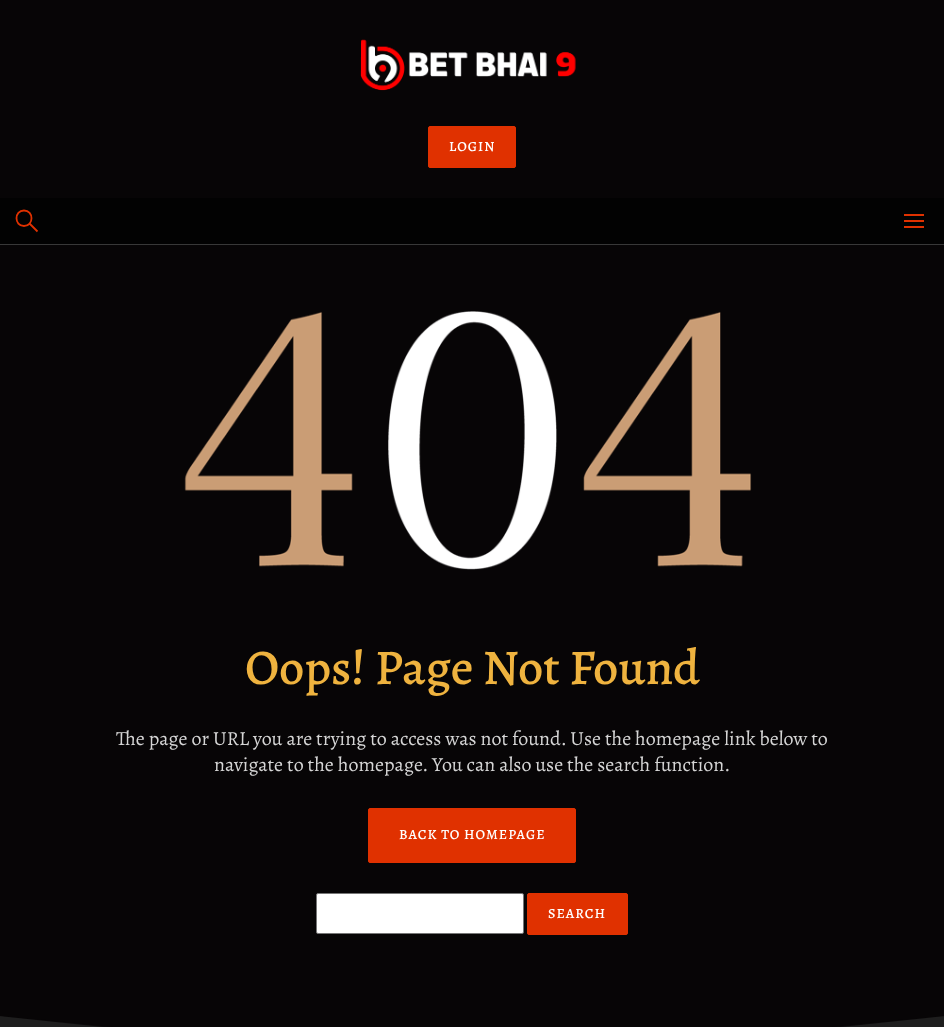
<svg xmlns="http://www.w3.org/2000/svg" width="944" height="1027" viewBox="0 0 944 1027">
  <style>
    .t1 { font: 500 14px Alegreya; letter-spacing: 1px; fill: #fff; }
    .t2 { font: 500 50px Alegreya; fill: #efb33f; }
    .t3 { font: 20px Alegreya; fill: #d5d5d5; }
  </style>
  <rect width="100%" height="100%" fill="#070506"/>
  <rect x="0" y="244" width="944" height="1" fill="#383838"/>
  <image x="360" y="39" width="216" height="52" href="images/1.png"/>
  <rect x="428.5" y="126.5" width="87" height="41" rx="1.5" fill="#e03100" stroke="#e03100"/>
  <text x="449" y="151" class="t1">LOGIN</text>
  <rect x="0" y="198" width="944" height="46" fill="#020202"/>
  <rect x="904" y="214" width="20" height="2" fill="#e03100"/>
  <rect x="904" y="220" width="20" height="2" fill="#e03100"/>
  <rect x="904" y="226" width="20" height="2" fill="#e03100"/>
  <path d="M24 226C34 226 34 210.5 24 210.5C14 210.5 14 226 24 226ZM37.5 231.5L29.5 223.5" fill="none" stroke="#e03100" stroke-width="1.8"/>
  <image x="184" y="311" width="568" height="259" href="images/2.png"/>
  <text x="245" y="684" class="t2">Oops! Page Not Found</text>
  <text x="116" y="745" class="t3">The page or URL you are trying to access was not found. Use the homepage link below to</text>
  <text x="214" y="771" class="t3">navigate to the homepage. You can also use the search function.</text>
  <rect x="368.5" y="808.5" width="207" height="54" rx="1.5" fill="#e03100" stroke="#e03100"/>
  <text x="399" y="839" class="t1">BACK TO HOMEPAGE</text>
  <rect x="316.5" y="893.5" width="207" height="40" rx="1.5" fill="#fff" stroke="#767676"/>
  <rect x="527.5" y="893.5" width="100" height="41" rx="1.5" fill="#e03100" stroke="#e03100"/>
  <text x="548" y="918" class="t1">SEARCH</text>
  <image x="0" y="1016" width="944" height="11" href="images/3.png"/>
</svg>
